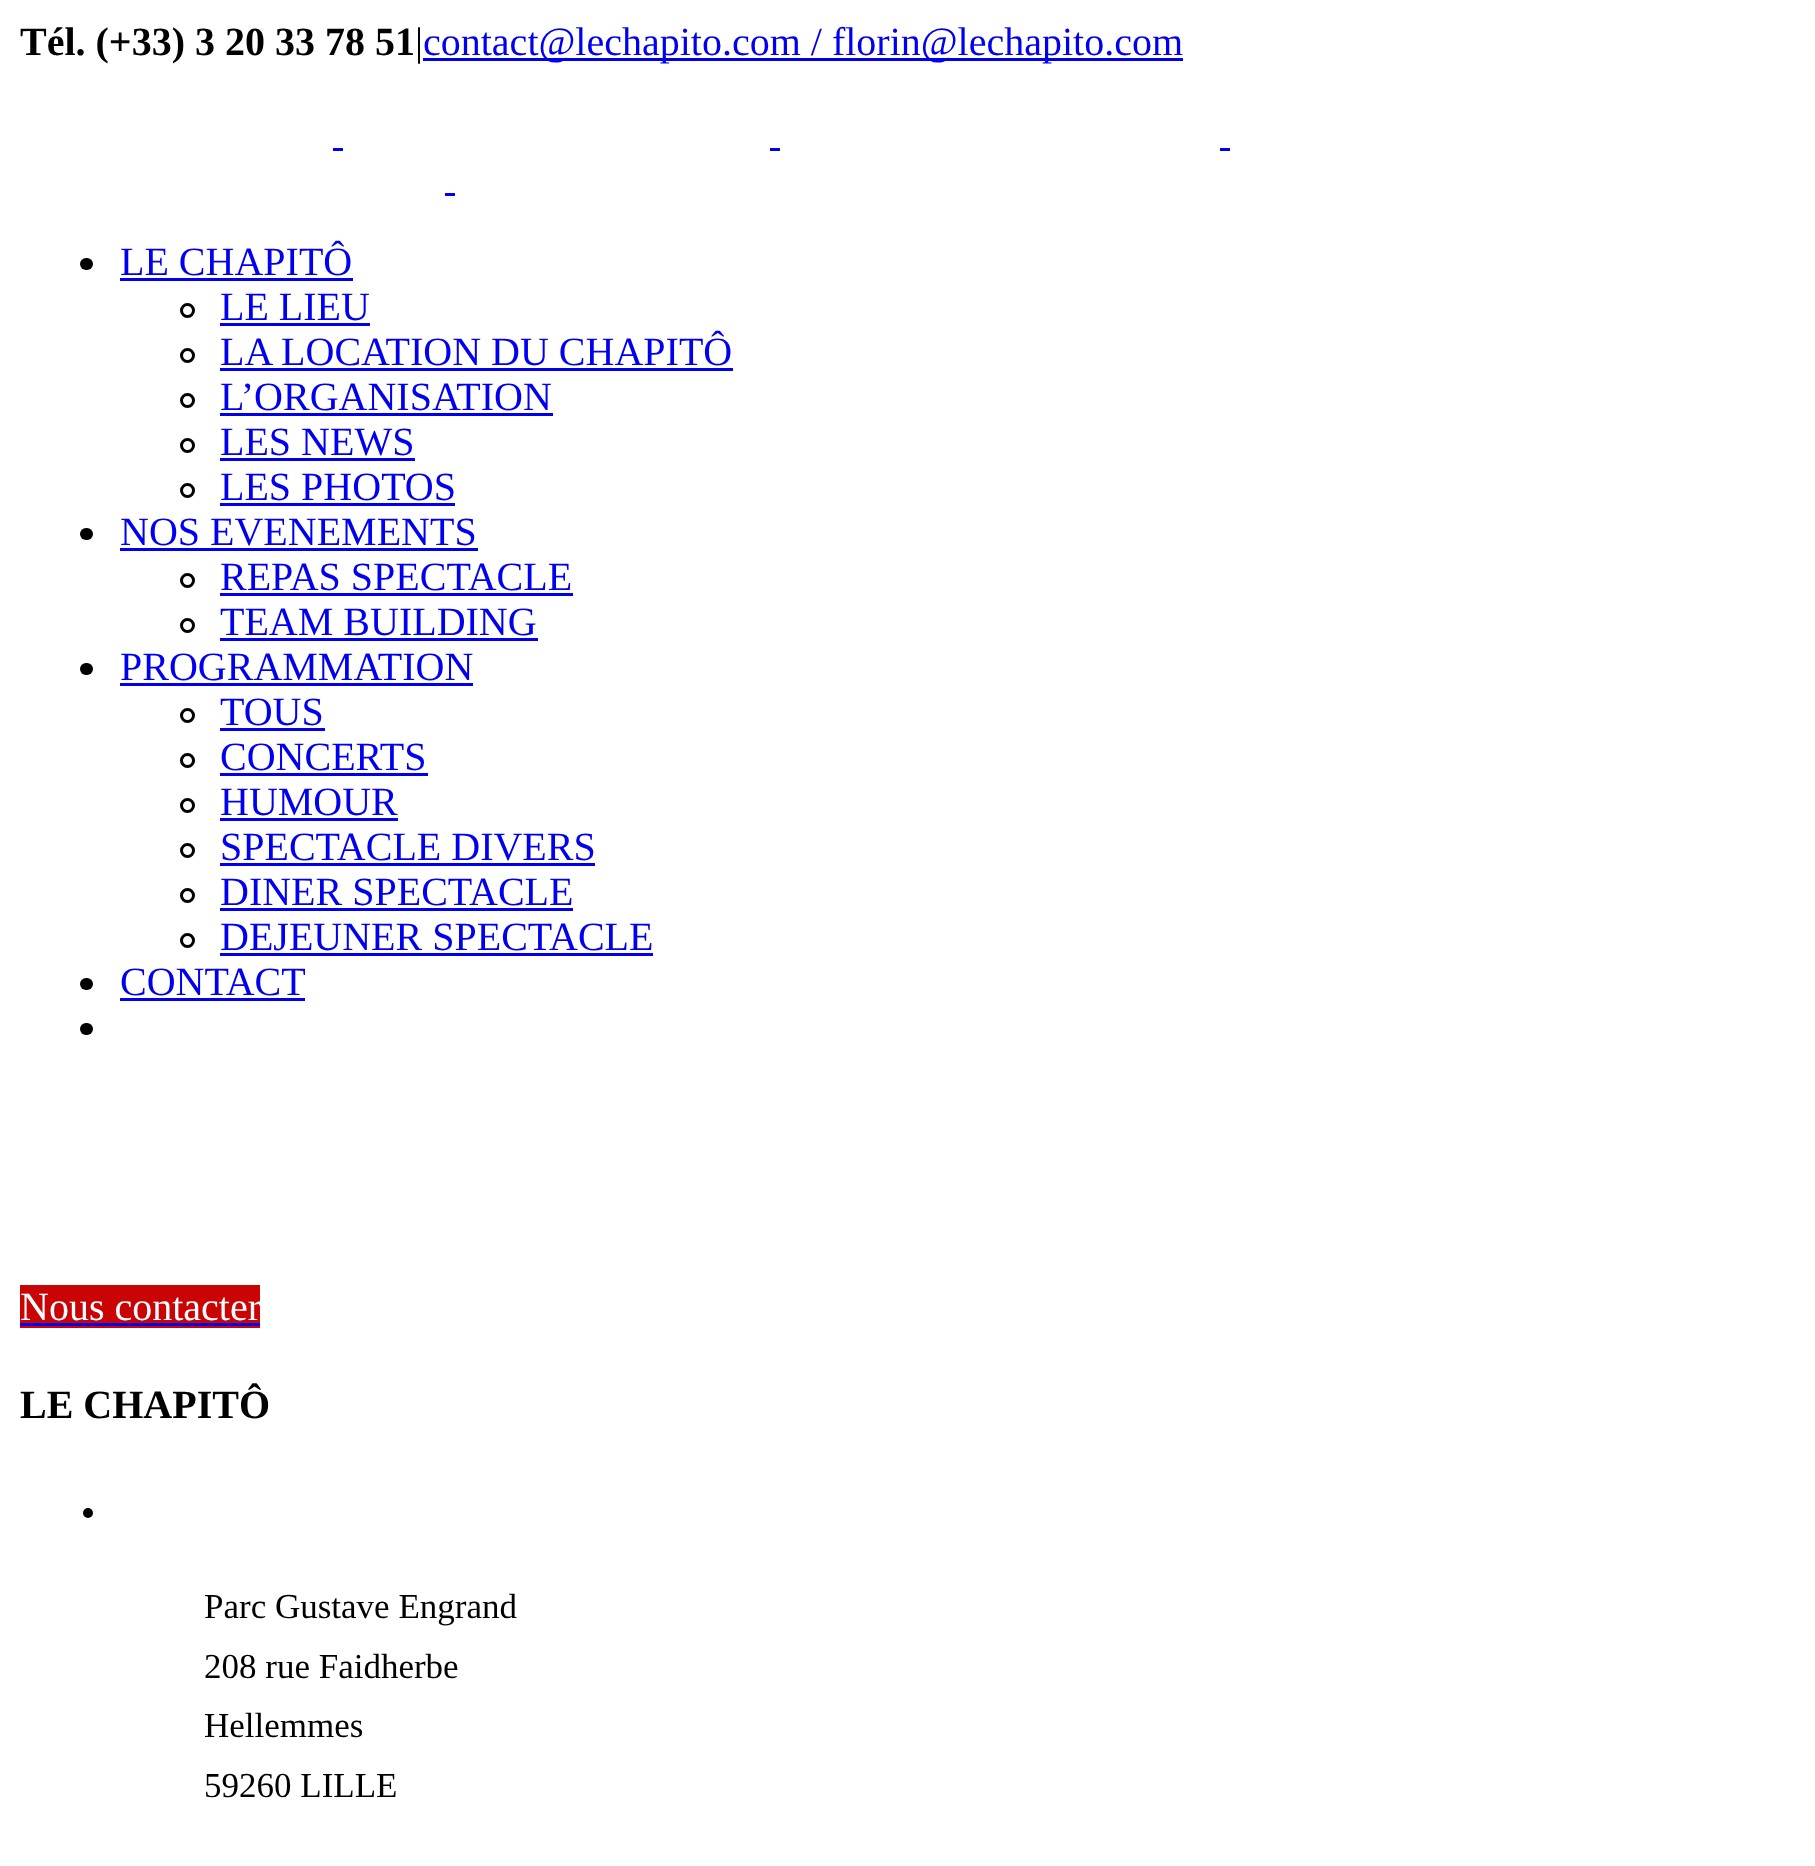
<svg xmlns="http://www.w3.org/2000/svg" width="1815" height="1866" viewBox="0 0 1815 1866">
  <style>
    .t1 { font: bold 40px Liberation Serif; fill: #000; }
    .t2 { font: 40px Liberation Serif; fill: #000; }
    .t3 { font: 40px Liberation Serif; fill: #00e; }
    .t4 { font: 40px Liberation Serif; fill: #fff; }
    .t5 { font: 35px Liberation Serif; fill: #000; }
  </style>
  <rect width="100%" height="100%" fill="#fff"/>
  <text x="20" y="55" class="t1">Tél. (+33) 3 20 33 78 51</text>
  <text x="415" y="55" class="t2">|</text>
  <rect x="423" y="58" width="760" height="3" fill="#00e"/>
  <text x="423" y="55" class="t3">contact@lechapito.com / florin@lechapito.com</text>
  <rect x="333" y="148" width="10" height="3" fill="#00e"/>
  <rect x="770" y="148" width="10" height="3" fill="#00e"/>
  <rect x="1220" y="148" width="10" height="3" fill="#00e"/>
  <rect x="445" y="193" width="10" height="3" fill="#00e"/>
  <rect x="80" y="258" width="13" height="12" rx="6" fill="#000"/>
  <text x="120" y="275" class="t3">LE CHAPITÔ</text>
  <rect x="120" y="278" width="233" height="3" fill="#00e"/>
  <circle cx="187.5" cy="310.5" r="6" fill="none" stroke="#000" stroke-width="3"/>
  <text x="220" y="320" class="t3">LE LIEU</text>
  <rect x="220" y="323" width="150" height="3" fill="#00e"/>
  <circle cx="187.5" cy="355.5" r="6" fill="none" stroke="#000" stroke-width="3"/>
  <text x="220" y="365" class="t3">LA LOCATION DU CHAPITÔ</text>
  <rect x="220" y="368" width="513" height="3" fill="#00e"/>
  <circle cx="187.5" cy="400.5" r="6" fill="none" stroke="#000" stroke-width="3"/>
  <text x="220" y="410" class="t3">L’ORGANISATION</text>
  <rect x="220" y="413" width="333" height="3" fill="#00e"/>
  <circle cx="187.5" cy="445.5" r="6" fill="none" stroke="#000" stroke-width="3"/>
  <text x="220" y="455" class="t3">LES NEWS</text>
  <rect x="220" y="458" width="195" height="3" fill="#00e"/>
  <circle cx="187.5" cy="490.5" r="6" fill="none" stroke="#000" stroke-width="3"/>
  <text x="220" y="500" class="t3">LES PHOTOS</text>
  <rect x="220" y="503" width="235" height="3" fill="#00e"/>
  <rect x="80" y="528" width="13" height="12" rx="6" fill="#000"/>
  <text x="120" y="545" class="t3">NOS EVENEMENTS</text>
  <rect x="120" y="548" width="358" height="3" fill="#00e"/>
  <circle cx="187.5" cy="580.5" r="6" fill="none" stroke="#000" stroke-width="3"/>
  <text x="220" y="590" class="t3">REPAS SPECTACLE</text>
  <rect x="220" y="593" width="353" height="3" fill="#00e"/>
  <circle cx="187.5" cy="625.5" r="6" fill="none" stroke="#000" stroke-width="3"/>
  <text x="220" y="635" class="t3">TEAM BUILDING</text>
  <rect x="220" y="638" width="318" height="3" fill="#00e"/>
  <rect x="80" y="663" width="13" height="12" rx="6" fill="#000"/>
  <text x="120" y="680" class="t3">PROGRAMMATION</text>
  <rect x="120" y="683" width="353" height="3" fill="#00e"/>
  <circle cx="187.5" cy="715.5" r="6" fill="none" stroke="#000" stroke-width="3"/>
  <text x="220" y="725" class="t3">TOUS</text>
  <rect x="220" y="728" width="105" height="3" fill="#00e"/>
  <circle cx="187.5" cy="760.5" r="6" fill="none" stroke="#000" stroke-width="3"/>
  <text x="220" y="770" class="t3">CONCERTS</text>
  <rect x="220" y="773" width="208" height="3" fill="#00e"/>
  <circle cx="187.5" cy="805.5" r="6" fill="none" stroke="#000" stroke-width="3"/>
  <text x="220" y="815" class="t3">HUMOUR</text>
  <rect x="220" y="818" width="178" height="3" fill="#00e"/>
  <circle cx="187.5" cy="850.5" r="6" fill="none" stroke="#000" stroke-width="3"/>
  <text x="220" y="860" class="t3">SPECTACLE DIVERS</text>
  <rect x="220" y="863" width="375" height="3" fill="#00e"/>
  <circle cx="187.5" cy="895.5" r="6" fill="none" stroke="#000" stroke-width="3"/>
  <text x="220" y="905" class="t3">DINER SPECTACLE</text>
  <rect x="220" y="908" width="353" height="3" fill="#00e"/>
  <circle cx="187.5" cy="940.5" r="6" fill="none" stroke="#000" stroke-width="3"/>
  <text x="220" y="950" class="t3">DEJEUNER SPECTACLE</text>
  <rect x="220" y="953" width="433" height="3" fill="#00e"/>
  <rect x="80" y="978" width="13" height="12" rx="6" fill="#000"/>
  <text x="120" y="995" class="t3">CONTACT</text>
  <rect x="120" y="998" width="185" height="3" fill="#00e"/>
  <rect x="80" y="1023" width="13" height="12" rx="6" fill="#000"/>
  <rect x="20" y="1285" width="240" height="43" fill="#ca0405"/>
  <text x="20" y="1320" class="t4">Nous contacter</text>
  <rect x="20" y="1323" width="240" height="3" fill="#00e"/>
  <text x="20" y="1418" class="t1">LE CHAPITÔ</text>
  <circle cx="88" cy="1513" r="5" fill="#000"/>
  <text x="204" y="1618" class="t5">Parc Gustave Engrand</text>
  <text x="204" y="1678" class="t5">208 rue Faidherbe</text>
  <text x="204" y="1737" class="t5">Hellemmes</text>
  <text x="204" y="1797" class="t5">59260 LILLE</text>
</svg>
